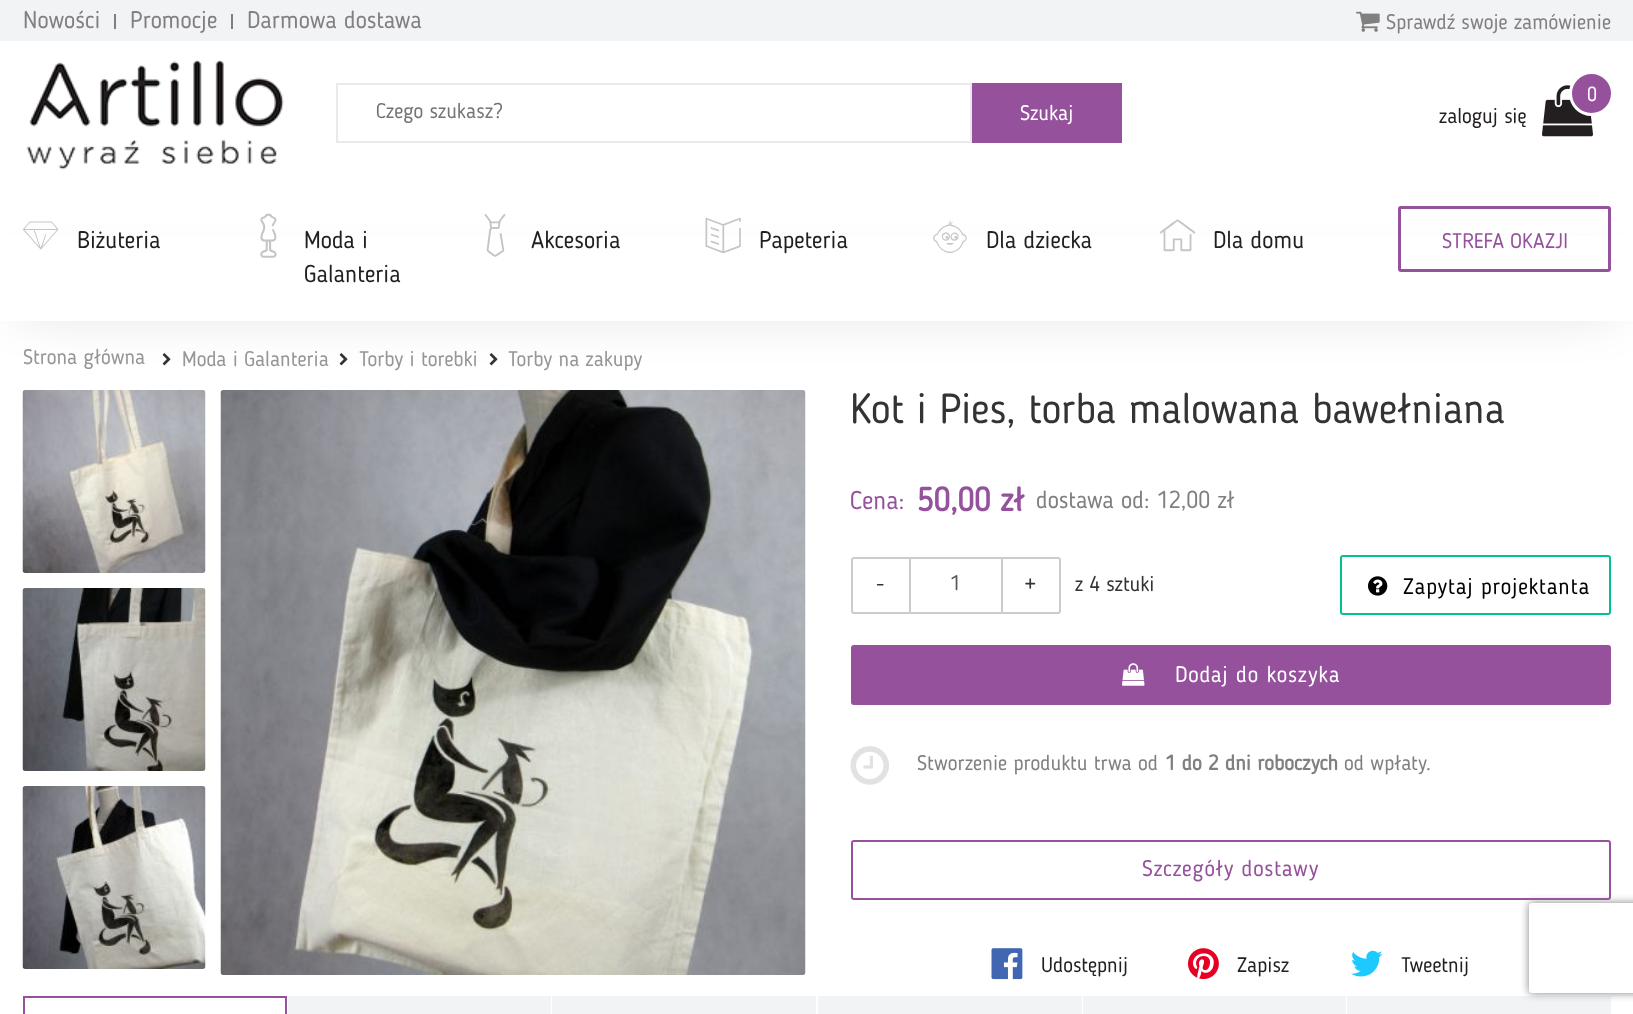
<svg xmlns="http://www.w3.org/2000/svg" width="1633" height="1014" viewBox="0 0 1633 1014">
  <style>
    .t1 { font: 24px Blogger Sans; fill: #827f80; }
    .t2 { font: 21px Blogger Sans; fill: #827f80; }
    .t3 { font: 21px Blogger Sans; fill: #757575; }
    .t4 { font: 21px Blogger Sans; fill: #fff; }
    .t5 { font: 20px Blogger Sans; fill: #fff; }
    .t6 { font: 21px Blogger Sans; fill: #231f20; }
    .t7 { font: 24px Blogger Sans; fill: #231f20; }
    .t8 { font: 21px Blogger Sans; fill: #96519d; }
    .t9 { font: 21px Blogger Sans; fill: #979595; }
    .t10 { font: 42px Blogger Sans; fill: #333; }
    .t11 { font: 25.5px Blogger Sans; fill: #96519d; }
    .t12 { font: bold 33px Blogger Sans; fill: #96519d; }
    .t13 { font: 21px Blogger Sans; fill: #333; }
    .t14 { font: 21px Blogger Sans; fill: #555; }
    .t15 { font: 22.5px Blogger Sans; letter-spacing: 0.75px; fill: #000; }
    .t16 { font: 22.5px Blogger Sans; letter-spacing: 0.75px; fill: #fff; }
    .t17 { font: bold 21px Blogger Sans; fill: #827f80; }
    .t18 { font: 22.5px Blogger Sans; letter-spacing: 0.75px; fill: #96519d; }
  </style>
  <defs>
    <clipPath id="clip1"><path d="M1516 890H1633V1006H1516ZM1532 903H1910C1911.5 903 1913 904.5 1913 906V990C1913 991.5 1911.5 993 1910 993H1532C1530.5 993 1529 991.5 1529 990V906C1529 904.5 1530.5 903 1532 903Z" clip-rule="evenodd"/></clipPath>
  </defs>
  <rect width="100%" height="100%" fill="#fff"/>
  <rect x="0" y="0" width="1633" height="41" fill="#f1f3f4"/>
  <text x="23" y="28" class="t1">Nowości</text>
  <rect x="114" y="14" width="2" height="15" fill="#827f80"/>
  <text x="130" y="28" class="t1">Promocje</text>
  <rect x="231" y="14" width="2" height="15" fill="#827f80"/>
  <text x="247" y="28" class="t1">Darmowa dostawa</text>
  <image x="1356" y="11" width="24" height="21" href="images/1.png"/>
  <text x="1386" y="29" class="t2">Sprawdź swoje zamówienie</text>
  <rect x="20" y="275" width="1594" height="36" fill="#00000026" filter="blur(26px)"/>
  <rect x="0" y="236" width="1633" height="85" fill="#fff"/>
  <image x="26" y="60" width="258" height="110" href="images/2.png"/>
  <rect x="337" y="84" width="634" height="58" fill="none" stroke="#e8eaed" stroke-width="2"/>
  <text x="376" y="118" class="t3">Czego szukasz?</text>
  <rect x="972" y="83" width="150" height="60" fill="#96519d"/>
  <text x="1020" y="120" class="t4">Szukaj</text>
  <path d="M736.5 150H721.5L729 142.5Z" fill="#fff"/>
  <image x="1542" y="85" width="51" height="52" href="images/3.png"/>
  <circle cx="1591.5" cy="93.5" r="21" fill="#96519d" stroke="#fff" stroke-width="3"/>
  <text x="1587" y="101" class="t5">0</text>
  <text x="1439" y="123" class="t6">zaloguj się</text>
  <image x="23" y="221" width="36" height="29" href="images/4.png"/>
  <text x="77" y="248" class="t7">Biżuteria</text>
  <image x="260" y="213" width="17" height="45" href="images/5.png"/>
  <text x="304" y="248" class="t7">Moda i</text>
  <text x="304" y="282" class="t7">Galanteria</text>
  <image x="484" y="214" width="22" height="43" href="images/6.png"/>
  <text x="531" y="248" class="t7">Akcesoria</text>
  <image x="705" y="217" width="36" height="37" href="images/7.png"/>
  <text x="759" y="248" class="t7">Papeteria</text>
  <image x="933" y="220" width="34" height="33" href="images/8.png"/>
  <text x="986" y="248" class="t7">Dla dziecka</text>
  <image x="1159" y="219" width="37" height="33" href="images/9.png"/>
  <text x="1213" y="248" class="t7">Dla domu</text>
  <rect x="1399.5" y="207.5" width="210" height="63" rx="1.5" fill="none" stroke="#96519d" stroke-width="3"/>
  <text x="1442" y="248" class="t8">STREFA OKAZJI</text>
  <text x="23" y="364" class="t9">Strona główna</text>
  <image x="162" y="353" width="9" height="13" href="images/10.png"/>
  <text x="182" y="366" class="t9">Moda i Galanteria</text>
  <image x="339" y="353" width="9" height="13" href="images/10.png"/>
  <text x="359" y="366" class="t9">Torby i torebki</text>
  <image x="489" y="353" width="9" height="13" href="images/10.png"/>
  <text x="508" y="366" class="t9">Torby na zakupy</text>
  <image x="22" y="390" width="184" height="183" href="images/11.png"/>
  <image x="22" y="588" width="184" height="183" href="images/12.png"/>
  <image x="22" y="786" width="184" height="183" href="images/13.png"/>
  <image x="220" y="390" width="586" height="585" href="images/14.png"/>
  <text x="850" y="423" class="t10">Kot i Pies, torba malowana bawełniana</text>
  <text x="850" y="509" class="t11">Cena:</text>
  <text x="917" y="511" class="t12">50,00 zł</text>
  <text x="1036" y="508" class="t1">dostawa od: 12,00 zł</text>
  <path d="M854 558H910V613H854C853 613 852 612 852 611V560C852 559 853 558 854 558Z" fill="none" stroke="#ccc" stroke-width="2"/>
  <text x="876" y="591" class="t13">-</text>
  <rect x="911" y="557" width="90" height="2" fill="#ccc"/>
  <rect x="911" y="612" width="90" height="2" fill="#ccc"/>
  <text x="950" y="590" class="t14">1</text>
  <path d="M1002 558H1058C1059 558 1060 559 1060 560V611C1060 612 1059 613 1058 613H1002Z" fill="none" stroke="#ccc" stroke-width="2"/>
  <text x="1025" y="591" class="t13">+</text>
  <text x="1075" y="591" class="t13">z 4 sztuki</text>
  <rect x="1341" y="556" width="269" height="58" rx="2" fill="none" stroke="#00c292" stroke-width="2"/>
  <image x="1368" y="576" width="20" height="20" href="images/15.png"/>
  <text x="1403" y="594" class="t15">Zapytaj projektanta</text>
  <rect x="851" y="645" width="760" height="60" rx="3" fill="#96519d"/>
  <image x="1122" y="663" width="23" height="23" href="images/16.png"/>
  <text x="1175" y="682" class="t16">Dodaj do koszyka</text>
  <image x="850" y="746" width="39" height="39" href="images/17.png"/>
  <text x="917" y="770" class="t2">Stworzenie produktu trwa od</text>
  <text x="1165" y="770" class="t17">1 do 2 dni roboczych</text>
  <text x="1344" y="770" class="t2">od wpłaty</text>
  <text x="1426" y="770" class="t2">.</text>
  <rect x="852" y="841" width="758" height="58" rx="2" fill="none" stroke="#96519d" stroke-width="2"/>
  <text x="1142" y="876" class="t18">Szczegóły dostawy</text>
  <image x="991" y="948" width="32" height="32" href="images/18.png"/>
  <text x="1041" y="972" class="t6">Udostępnij</text>
  <image x="1188" y="948" width="31" height="32" href="images/19.png"/>
  <text x="1237" y="972" class="t6">Zapisz</text>
  <image x="1351" y="950" width="32" height="27" href="images/20.png"/>
  <text x="1401" y="972" class="t6">Tweetnij</text>
  <rect x="24" y="997" width="262" height="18" fill="none" stroke="#96519d" stroke-width="2"/>
  <rect x="288" y="996" width="263" height="18" fill="#f1f3f4"/>
  <rect x="552" y="996" width="264" height="18" fill="#f1f3f4"/>
  <rect x="818" y="996" width="264" height="18" fill="#f1f3f4"/>
  <rect x="1083" y="996" width="263" height="18" fill="#f1f3f4"/>
  <rect x="1347" y="996" width="264" height="18" fill="#f1f3f4"/>
  <g clip-path="url(#clip1)">
    <rect x="1529" y="903" width="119" height="90" rx="3" fill="#808080" filter="blur(4px)"/>
  </g>
</svg>
